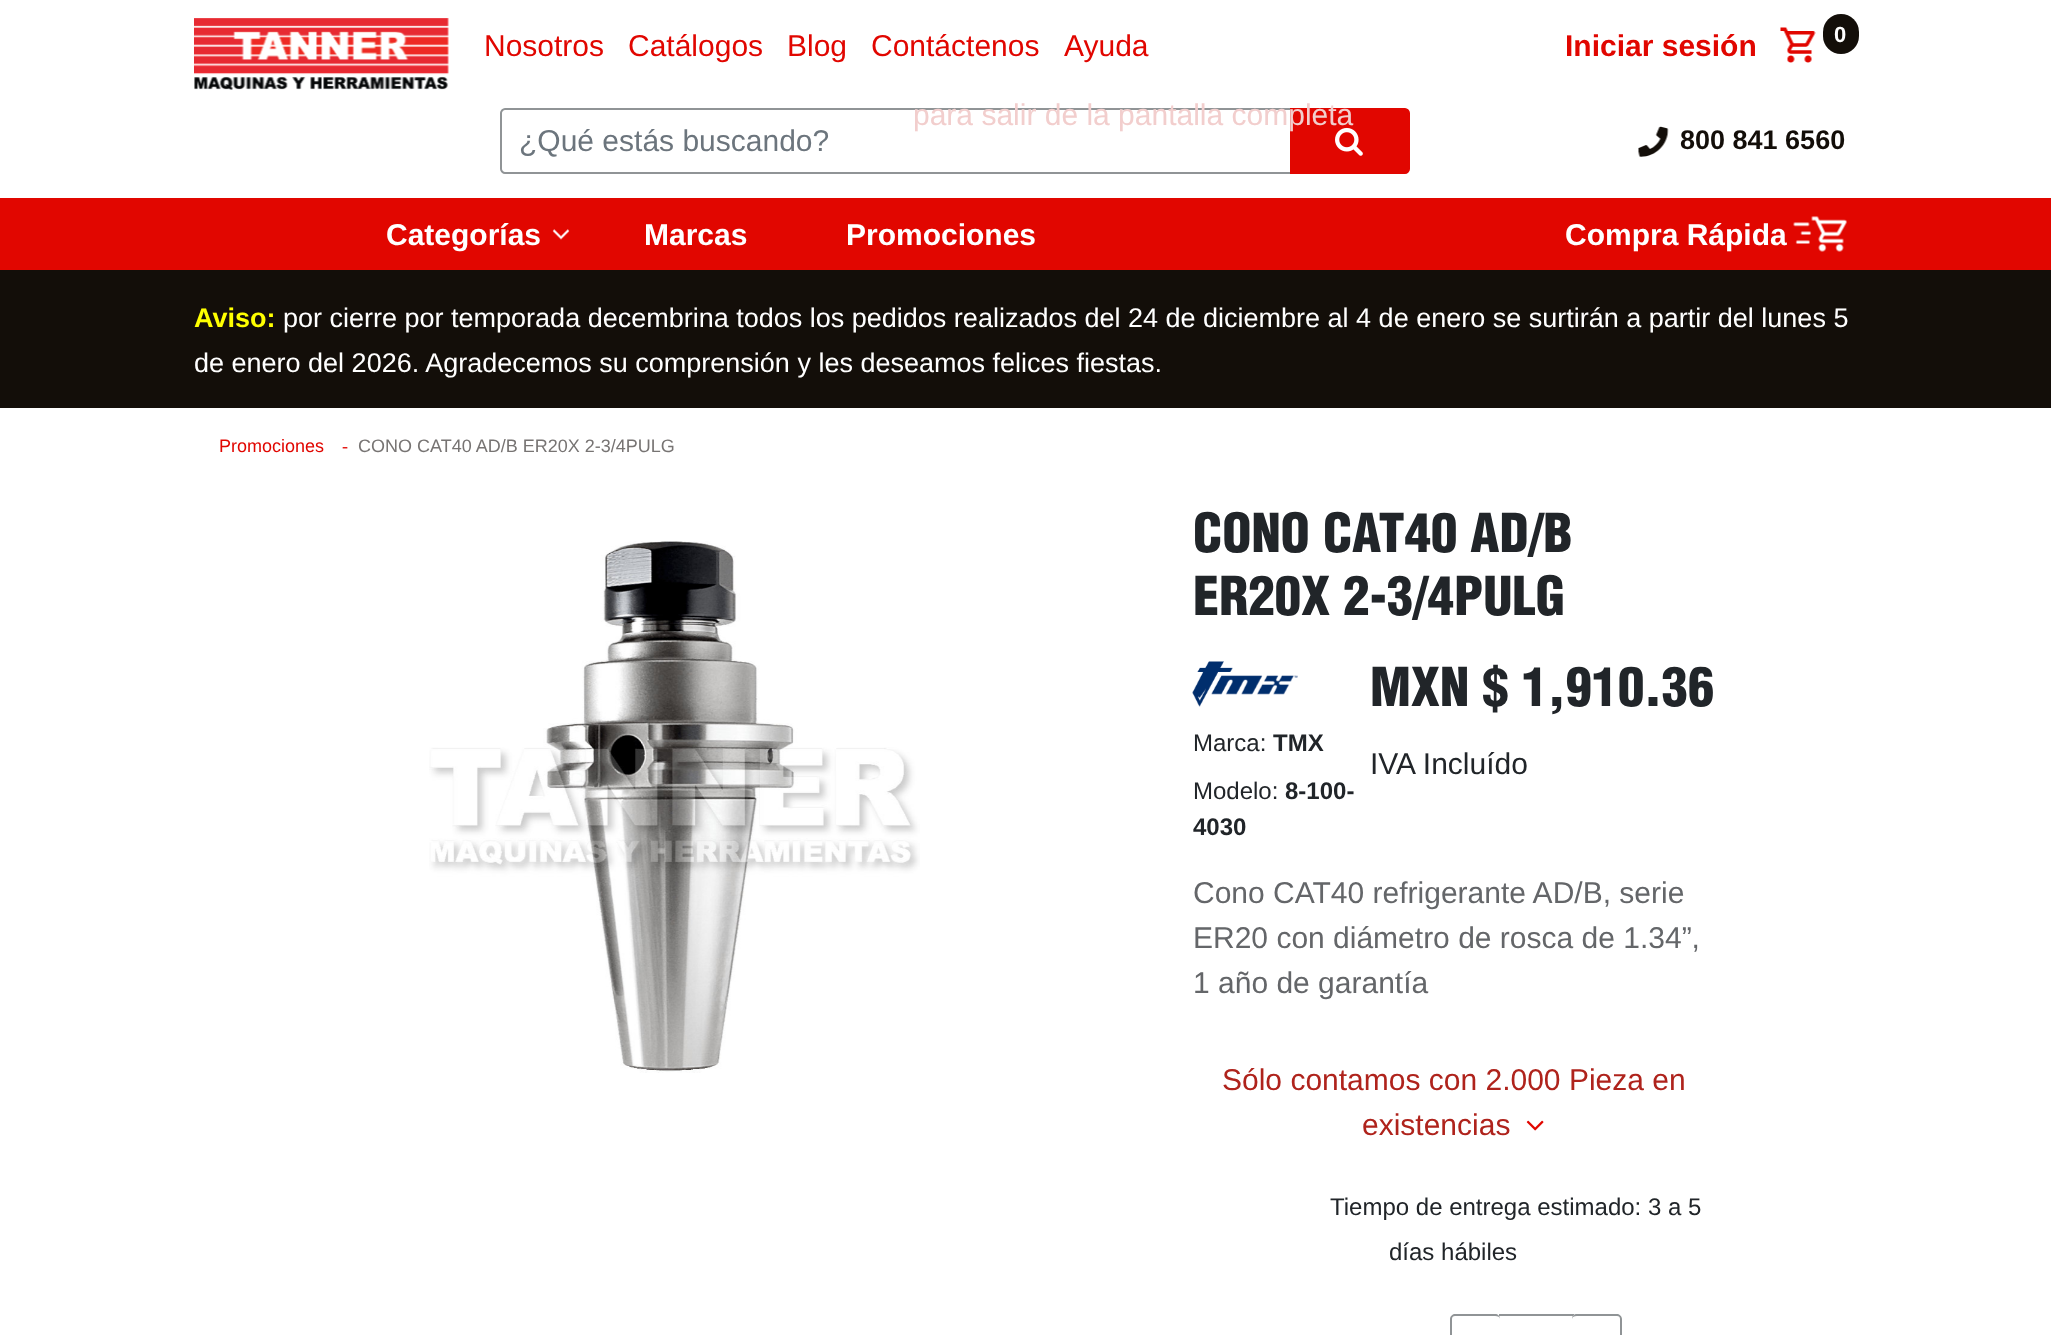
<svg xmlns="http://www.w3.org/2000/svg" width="2051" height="1335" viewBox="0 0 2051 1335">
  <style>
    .t1 { font: 30px Liberation Sans; fill: #e10600; }
    .t2 { font: bold 30px Liberation Sans; fill: #e10600; }
    .t3 { font: bold 22px Liberation Sans; fill: #fff; }
    .t4 { font: 30px Liberation Sans; fill: #6c757d; }
    .t5 { font: bold 27px Arimo; fill: #130e09; }
    .t6 { font: bold 30px Liberation Sans; fill: #fff; }
    .t7 { font: bold 30px Arimo; fill: #fff; }
    .t8 { font: bold 27px Arimo; fill: #ff0; }
    .t9 { font: 27px Liberation Sans; fill: #fff; }
    .t10 { font: 18px Liberation Sans; fill: #e10600; }
    .t11 { font: 18px Liberation Serif; fill: #e10600; }
    .t12 { font: 18px Liberation Sans; fill: #777473; }
    .t13 { font: 900 52.5px Helvetica; fill: #212529; }
    .t14 { font: 24px Liberation Sans; fill: #212529; }
    .t15 { font: bold 24px Liberation Sans; fill: #212529; }
    .t16 { font: 30px Liberation Sans; fill: #212529; }
    .t17 { font: 30px Liberation Sans; fill: #646669; }
    .t18 { font: 30px Liberation Sans; fill: #af231c; }
    .t19 { font: 30px Liberation Sans; fill: #f2cecd; }
  </style>
  <rect width="100%" height="100%" fill="#fff"/>
  <image x="194" y="18" width="255" height="72" href="images/1.png"/>
  <text x="484" y="56" class="t1">Nosotros</text>
  <text x="628" y="56" class="t1">Catálogos</text>
  <text x="787" y="56" class="t1">Blog</text>
  <text x="871" y="56" class="t1">Contáctenos</text>
  <text x="1064" y="56" class="t1">Ayuda</text>
  <text x="1565" y="56" class="t2">Iniciar sesión</text>
  <image x="1780" y="27" width="36" height="36" href="images/2.png"/>
  <rect x="1823" y="14" width="36" height="40" rx="18" fill="#130e09"/>
  <text x="1834" y="42" class="t3">0</text>
  <path d="M505 109H1291V173H505C503 173 501 171 501 169V113C501 111 503 109 505 109Z" fill="none" stroke="#909496" stroke-width="2"/>
  <text x="519" y="151" class="t4">¿Qué estás buscando?</text>
  <path d="M1291 109H1405C1407 109 1409 111 1409 113V169C1409 171 1407 173 1405 173H1291Z" fill="#e10600" stroke="#e10600" stroke-width="2"/>
  <image x="1335" y="127" width="28" height="29" href="images/3.png"/>
  <image x="1638" y="126" width="31" height="31" href="images/4.png"/>
  <text x="1680" y="149" class="t5">800 841 6560</text>
  <rect x="0" y="198" width="2051" height="72" fill="#e10600"/>
  <text x="386" y="245" class="t6">Categorías</text>
  <image x="552" y="229" width="18" height="11" href="images/5.png"/>
  <text x="644" y="245" class="t6">Marcas</text>
  <text x="846" y="245" class="t6">Promociones</text>
  <text x="1565" y="245" class="t7">Compra Rápida</text>
  <image x="1793" y="216" width="54" height="36" href="images/6.png"/>
  <rect x="0" y="270" width="2051" height="138" fill="#130e09"/>
  <text x="194" y="327" class="t8">Aviso:</text>
  <text x="283" y="327" class="t9">por cierre por temporada decembrina todos los pedidos realizados del 24 de diciembre al 4 de enero se surtirán a partir del lunes 5</text>
  <text x="194" y="372" class="t9">de enero del 2026. Agradecemos su comprensión y les deseamos felices fiestas.</text>
  <text x="219" y="452" class="t10">Promociones</text>
  <text x="342" y="452" class="t11">-</text>
  <text x="358" y="452" class="t12">CONO CAT40 AD/B ER20X 2-3/4PULG</text>
  <image x="429" y="541" width="491" height="532" href="images/7.png"/>
  <text x="1193" y="552" class="t13">CONO CAT40 AD/B</text>
  <text x="1193" y="615" class="t13">ER20X 2-3/4PULG</text>
  <image x="1192" y="661" width="106" height="46" href="images/8.png"/>
  <text x="1193" y="751" class="t14">Marca:</text>
  <text x="1273" y="751" class="t15">TMX</text>
  <text x="1193" y="799" class="t14">Modelo:</text>
  <text x="1285" y="799" class="t15">8-100-</text>
  <text x="1193" y="835" class="t15">4030</text>
  <text x="1370" y="706" class="t13">MXN $ 1,910.36</text>
  <text x="1370" y="774" class="t16">IVA Incluído</text>
  <text x="1193" y="903" class="t17">Cono CAT40 refrigerante AD/B, serie</text>
  <text x="1193" y="948" class="t17">ER20 con diámetro de rosca de 1.34”,</text>
  <text x="1193" y="993" class="t17">1 año de garantía</text>
  <text x="1222" y="1090" class="t18">Sólo contamos con 2.000 Pieza en</text>
  <text x="1362" y="1135" class="t18">existencias</text>
  <image x="1526" y="1120" width="18" height="11" href="images/9.png"/>
  <text x="1330" y="1215" class="t14">Tiempo de entrega estimado: 3 a 5</text>
  <text x="1389" y="1260" class="t14">días hábiles</text>
  <rect x="1499" y="1314" width="75" height="2" fill="#909496"/>
  <path d="M1455 1314H1495C1498 1314 1500 1316 1500 1319V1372C1500 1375 1498 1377 1495 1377H1455C1453 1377 1450 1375 1450 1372V1319C1450 1316 1453 1314 1455 1314ZM1455 1316H1495C1498 1316 1500 1317 1500 1319V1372C1500 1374 1498 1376 1495 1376H1455C1453 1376 1452 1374 1452 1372V1319C1452 1317 1453 1316 1455 1316Z" fill="#909496" fill-rule="evenodd"/>
  <path d="M1577 1314H1617C1620 1314 1622 1316 1622 1319V1335H1572V1319C1572 1316 1574 1314 1577 1314Z" fill="#fff"/>
  <path d="M1577 1314H1617C1619 1314 1622 1316 1622 1319V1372C1622 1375 1619 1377 1617 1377H1577C1574 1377 1572 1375 1572 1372V1319C1572 1316 1574 1314 1577 1314ZM1577 1316H1617C1619 1316 1620 1317 1620 1319V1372C1620 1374 1619 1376 1617 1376H1577C1574 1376 1572 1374 1572 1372V1319C1572 1317 1574 1316 1577 1316Z" fill="#909496" fill-rule="evenodd"/>
  <text x="913" y="125" class="t19">para salir de la pantalla completa</text>
</svg>
